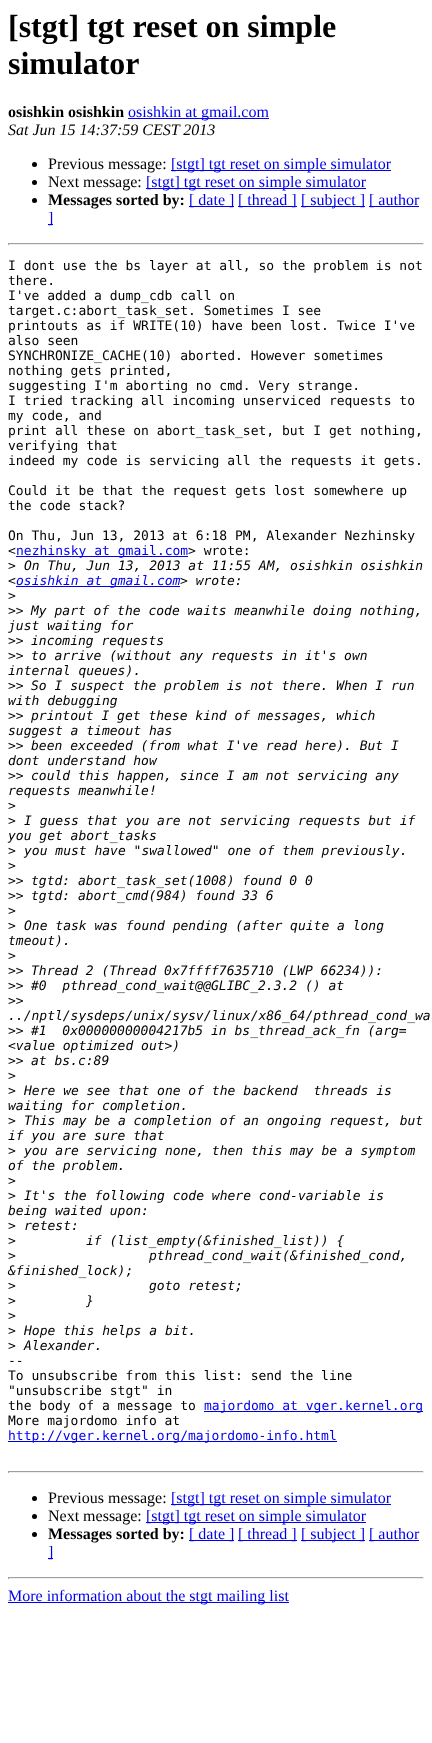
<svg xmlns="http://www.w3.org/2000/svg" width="432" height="1743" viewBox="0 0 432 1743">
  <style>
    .t1 { font: bold 32px Liberation Serif; fill: #000; }
    .t2 { font: bold 16px Liberation Serif; fill: #000; }
    .t3 { font: 16px Liberation Serif; fill: #00e; }
    .t4 { font: italic 16px Liberation Serif; fill: #000; }
    .t5 { font: 16px Liberation Serif; fill: #000; }
    .t6 { font: 13px DejaVu Sans Mono; fill: #000; }
    .t7 { font: 13px DejaVu Sans Mono; fill: #00e; }
    .t8 { font: italic 13px DejaVu Sans Mono; fill: #000; }
    .t9 { font: italic 13px DejaVu Sans Mono; fill: #00e; }
  </style>
  <rect width="100%" height="100%" fill="#fff"/>
  <text x="8" y="37" class="t1">[stgt] tgt reset on simple</text>
  <text x="8" y="74" class="t1">simulator</text>
  <text x="8" y="117" class="t2">osishkin osishkin</text>
  <rect x="128" y="118" width="141" height="1" fill="#00e"/>
  <text x="128" y="117" class="t3">osishkin at gmail.com</text>
  <text x="8" y="135" class="t4">Sat Jun 15 14:37:59 CEST 2013</text>
  <circle cx="34.5" cy="164.5" r="2.5" fill="#000"/>
  <text x="48" y="169" class="t5">Previous message:</text>
  <rect x="171" y="170" width="220" height="1" fill="#00e"/>
  <text x="171" y="169" class="t3">[stgt] tgt reset on simple simulator</text>
  <circle cx="34.5" cy="182.5" r="2.5" fill="#000"/>
  <text x="48" y="187" class="t5">Next message:</text>
  <rect x="146" y="188" width="220" height="1" fill="#00e"/>
  <text x="146" y="187" class="t3">[stgt] tgt reset on simple simulator</text>
  <circle cx="34.5" cy="200.5" r="2.5" fill="#000"/>
  <text x="48" y="205" class="t2">Messages sorted by:</text>
  <rect x="189" y="206" width="45" height="1" fill="#00e"/>
  <text x="189" y="205" class="t3">[ date ]</text>
  <rect x="238" y="206" width="59" height="1" fill="#00e"/>
  <text x="238" y="205" class="t3">[ thread ]</text>
  <rect x="301" y="206" width="64" height="1" fill="#00e"/>
  <text x="301" y="205" class="t3">[ subject ]</text>
  <rect x="369" y="206" width="50" height="1" fill="#00e"/>
  <text x="369" y="205" class="t3">[ author</text>
  <rect x="48" y="224" width="5" height="1" fill="#00e"/>
  <text x="48" y="223" class="t3">]</text>
  <rect x="8" y="243" width="416" height="1" fill="#9f9f9f"/>
  <rect x="423" y="243" width="1" height="2" fill="#eee"/>
  <rect x="8" y="244" width="416" height="1" fill="#eee"/>
  <rect x="8" y="243" width="1" height="2" fill="#9f9f9f"/>
  <text x="8" y="270" class="t6">I dont use the bs layer at all, so the problem is not</text>
  <text x="8" y="285" class="t6">there.</text>
  <text x="8" y="300" class="t6">I've added a dump_cdb call on</text>
  <text x="8" y="315" class="t6">target.c:abort_task_set. Sometimes I see</text>
  <text x="8" y="330" class="t6">printouts as if WRITE(10) have been lost. Twice I've</text>
  <text x="8" y="345" class="t6">also seen</text>
  <text x="8" y="360" class="t6">SYNCHRONIZE_CACHE(10) aborted. However sometimes</text>
  <text x="8" y="375" class="t6">nothing gets printed,</text>
  <text x="8" y="390" class="t6">suggesting I'm aborting no cmd. Very strange.</text>
  <text x="8" y="405" class="t6">I tried tracking all incoming unserviced requests to</text>
  <text x="8" y="420" class="t6">my code, and</text>
  <text x="8" y="435" class="t6">print all these on abort_task_set, but I get nothing,</text>
  <text x="8" y="450" class="t6">verifying that</text>
  <text x="8" y="465" class="t6">indeed my code is servicing all the requests it gets.</text>
  <text x="8" y="495" class="t6">Could it be that the request gets lost somewhere up</text>
  <text x="8" y="510" class="t6">the code stack?</text>
  <text x="8" y="540" class="t6">On Thu, Jun 13, 2013 at 6:18 PM, Alexander Nezhinsky</text>
  <text x="8" y="555" class="t6">&lt;</text>
  <rect x="16" y="556" width="172" height="1" fill="#00e"/>
  <text x="16" y="555" class="t7">nezhinsky at gmail.com</text>
  <text x="188" y="555" class="t6">&gt; wrote:</text>
  <text x="8" y="570" class="t6">&gt;</text>
  <text x="24" y="570" class="t8">On Thu, Jun 13, 2013 at 11:55 AM, osishkin osishkin</text>
  <text x="8" y="585" class="t8">&lt;</text>
  <rect x="16" y="586" width="164" height="1" fill="#00e"/>
  <text x="16" y="585" class="t9">osishkin at gmail.com</text>
  <text x="180" y="585" class="t8">&gt; wrote:</text>
  <text x="8" y="600" class="t6">&gt;</text>
  <text x="8" y="615" class="t6">&gt;&gt;</text>
  <text x="31" y="615" class="t8">My part of the code waits meanwhile doing nothing,</text>
  <text x="8" y="630" class="t8">just waiting for</text>
  <text x="8" y="645" class="t6">&gt;&gt;</text>
  <text x="31" y="645" class="t8">incoming requests</text>
  <text x="8" y="660" class="t6">&gt;&gt;</text>
  <text x="31" y="660" class="t8">to arrive (without any requests in it's own</text>
  <text x="8" y="675" class="t8">internal queues).</text>
  <text x="8" y="690" class="t6">&gt;&gt;</text>
  <text x="31" y="690" class="t8">So I suspect the problem is not there. When I run</text>
  <text x="8" y="705" class="t8">with debugging</text>
  <text x="8" y="720" class="t6">&gt;&gt;</text>
  <text x="31" y="720" class="t8">printout I get these kind of messages, which</text>
  <text x="8" y="735" class="t8">suggest a timeout has</text>
  <text x="8" y="750" class="t6">&gt;&gt;</text>
  <text x="31" y="750" class="t8">been exceeded (from what I've read here). But I</text>
  <text x="8" y="765" class="t8">dont understand how</text>
  <text x="8" y="780" class="t6">&gt;&gt;</text>
  <text x="31" y="780" class="t8">could this happen, since I am not servicing any</text>
  <text x="8" y="795" class="t8">requests meanwhile!</text>
  <text x="8" y="810" class="t6">&gt;</text>
  <text x="8" y="825" class="t6">&gt;</text>
  <text x="24" y="825" class="t8">I guess that you are not servicing requests but if</text>
  <text x="8" y="840" class="t8">you get abort_tasks</text>
  <text x="8" y="855" class="t6">&gt;</text>
  <text x="24" y="855" class="t8">you must have "swallowed" one of them previously.</text>
  <text x="8" y="870" class="t6">&gt;</text>
  <text x="8" y="885" class="t6">&gt;&gt;</text>
  <text x="31" y="885" class="t8">tgtd: abort_task_set(1008) found 0 0</text>
  <text x="8" y="900" class="t6">&gt;&gt;</text>
  <text x="31" y="900" class="t8">tgtd: abort_cmd(984) found 33 6</text>
  <text x="8" y="915" class="t6">&gt;</text>
  <text x="8" y="930" class="t6">&gt;</text>
  <text x="24" y="930" class="t8">One task was found pending (after quite a long</text>
  <text x="8" y="945" class="t8">tmeout).</text>
  <text x="8" y="960" class="t6">&gt;</text>
  <text x="8" y="975" class="t6">&gt;&gt;</text>
  <text x="31" y="975" class="t8">Thread 2 (Thread 0x7ffff7635710 (LWP 66234)):</text>
  <text x="8" y="990" class="t6">&gt;&gt;</text>
  <text x="31" y="990" class="t8" xml:space="preserve">#0  pthread_cond_wait@@GLIBC_2.3.2 () at</text>
  <text x="8" y="1005" class="t6">&gt;&gt;</text>
  <text x="8" y="1020" class="t8">../nptl/sysdeps/unix/sysv/linux/x86_64/pthread_cond_wa</text>
  <text x="8" y="1035" class="t6">&gt;&gt;</text>
  <text x="31" y="1035" class="t8" xml:space="preserve">#1  0x00000000004217b5 in bs_thread_ack_fn (arg=</text>
  <text x="8" y="1050" class="t8">&lt;value optimized out&gt;)</text>
  <text x="8" y="1065" class="t6">&gt;&gt;</text>
  <text x="31" y="1065" class="t8">at bs.c:89</text>
  <text x="8" y="1080" class="t6">&gt;</text>
  <text x="8" y="1095" class="t6">&gt;</text>
  <text x="24" y="1095" class="t8" xml:space="preserve">Here we see that one of the backend  threads is</text>
  <text x="8" y="1110" class="t8">waiting for completion.</text>
  <text x="8" y="1125" class="t6">&gt;</text>
  <text x="24" y="1125" class="t8">This may be a completion of an ongoing request, but</text>
  <text x="8" y="1140" class="t8">if you are sure that</text>
  <text x="8" y="1155" class="t6">&gt;</text>
  <text x="24" y="1155" class="t8">you are servicing none, then this may be a symptom</text>
  <text x="8" y="1170" class="t8">of the problem.</text>
  <text x="8" y="1185" class="t6">&gt;</text>
  <text x="8" y="1200" class="t6">&gt;</text>
  <text x="24" y="1200" class="t8">It's the following code where cond-variable is</text>
  <text x="8" y="1215" class="t8">being waited upon:</text>
  <text x="8" y="1230" class="t6">&gt;</text>
  <text x="24" y="1230" class="t8">retest:</text>
  <text x="8" y="1245" class="t6">&gt;</text>
  <text x="86" y="1245" class="t8">if (list_empty(&amp;finished_list)) {</text>
  <text x="8" y="1260" class="t6">&gt;</text>
  <text x="149" y="1260" class="t8">pthread_cond_wait(&amp;finished_cond,</text>
  <text x="8" y="1275" class="t8">&amp;finished_lock);</text>
  <text x="8" y="1290" class="t6">&gt;</text>
  <text x="149" y="1290" class="t8">goto retest;</text>
  <text x="8" y="1305" class="t6">&gt;</text>
  <text x="86" y="1305" class="t8">}</text>
  <text x="8" y="1320" class="t6">&gt;</text>
  <text x="8" y="1335" class="t6">&gt;</text>
  <text x="24" y="1335" class="t8">Hope this helps a bit.</text>
  <text x="8" y="1350" class="t6">&gt;</text>
  <text x="24" y="1350" class="t8">Alexander.</text>
  <text x="8" y="1365" class="t6">--</text>
  <text x="8" y="1380" class="t6">To unsubscribe from this list: send the line</text>
  <text x="8" y="1395" class="t6">"unsubscribe stgt" in</text>
  <text x="8" y="1410" class="t6">the body of a message to</text>
  <rect x="204" y="1411" width="219" height="1" fill="#00e"/>
  <text x="204" y="1410" class="t7">majordomo at vger.kernel.org</text>
  <text x="8" y="1425" class="t6">More majordomo info at</text>
  <rect x="8" y="1441" width="329" height="1" fill="#00e"/>
  <text x="8" y="1440" class="t7">http://vger.kernel.org/majordomo-info.html</text>
  <rect x="8" y="1471" width="416" height="1" fill="#9f9f9f"/>
  <rect x="423" y="1471" width="1" height="2" fill="#eee"/>
  <rect x="8" y="1472" width="416" height="1" fill="#eee"/>
  <rect x="8" y="1471" width="1" height="2" fill="#9f9f9f"/>
  <circle cx="34.5" cy="1498.5" r="2.5" fill="#000"/>
  <text x="48" y="1503" class="t5">Previous message:</text>
  <rect x="171" y="1504" width="220" height="1" fill="#00e"/>
  <text x="171" y="1503" class="t3">[stgt] tgt reset on simple simulator</text>
  <circle cx="34.5" cy="1516.5" r="2.5" fill="#000"/>
  <text x="48" y="1521" class="t5">Next message:</text>
  <rect x="146" y="1522" width="220" height="1" fill="#00e"/>
  <text x="146" y="1521" class="t3">[stgt] tgt reset on simple simulator</text>
  <circle cx="34.5" cy="1534.5" r="2.5" fill="#000"/>
  <text x="48" y="1539" class="t2">Messages sorted by:</text>
  <rect x="189" y="1540" width="45" height="1" fill="#00e"/>
  <text x="189" y="1539" class="t3">[ date ]</text>
  <rect x="238" y="1540" width="59" height="1" fill="#00e"/>
  <text x="238" y="1539" class="t3">[ thread ]</text>
  <rect x="301" y="1540" width="64" height="1" fill="#00e"/>
  <text x="301" y="1539" class="t3">[ subject ]</text>
  <rect x="369" y="1540" width="50" height="1" fill="#00e"/>
  <text x="369" y="1539" class="t3">[ author</text>
  <rect x="48" y="1558" width="5" height="1" fill="#00e"/>
  <text x="48" y="1557" class="t3">]</text>
  <rect x="8" y="1577" width="416" height="1" fill="#9f9f9f"/>
  <rect x="423" y="1577" width="1" height="2" fill="#eee"/>
  <rect x="8" y="1578" width="416" height="1" fill="#eee"/>
  <rect x="8" y="1577" width="1" height="2" fill="#9f9f9f"/>
  <rect x="8" y="1602" width="281" height="1" fill="#00e"/>
  <text x="8" y="1601" class="t3">More information about the stgt mailing list</text>
</svg>
